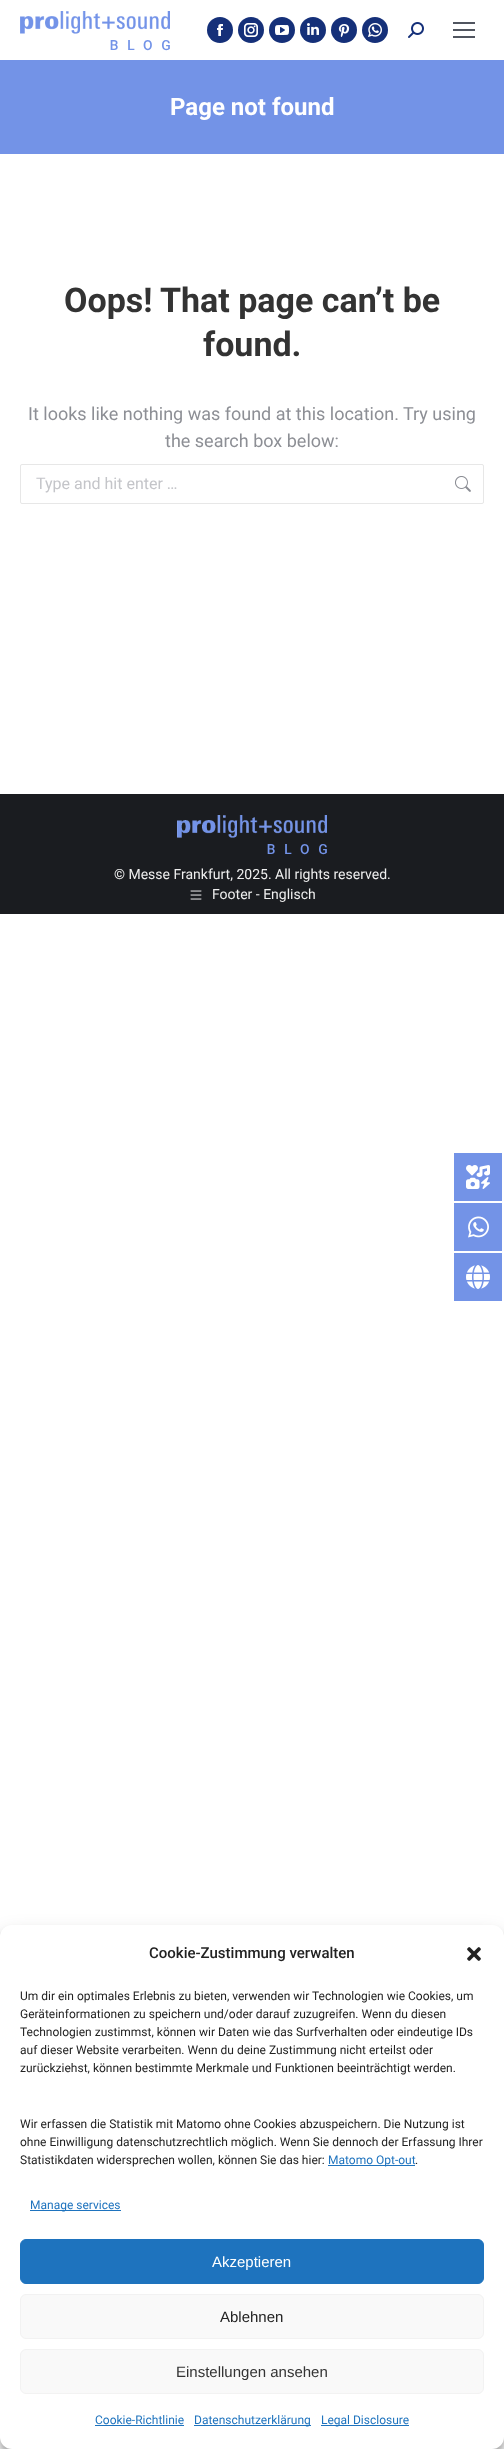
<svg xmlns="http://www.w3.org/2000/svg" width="504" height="2449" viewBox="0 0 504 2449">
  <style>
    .t1 { font: bold 24px Roboto; fill: #fff; }
    .t2 { font: bold 34px Roboto; fill: #333; }
    .t3 { font: 18px Roboto; fill: #8d8f95; }
    .t4 { font: 16px Roboto; fill: #c4c5c9; }
    .t5 { font: 14px Roboto; fill: #eee; }
    .t6 { font: 500 15px Roboto; fill: #222; }
    .t7 { font: 12px Roboto; fill: #222; }
    .t8 { font: 12px Roboto; fill: #1e73be; }
    .t9 { font: 15px Liberation Sans; fill: #fff; }
    .t10 { font: 15px Liberation Sans; fill: #222; }
    .t11 { font: 15px Liberation Sans; fill: #333; }
  </style>
  <rect width="100%" height="100%" fill="#fff"/>
  <image x="20" y="11" width="150" height="40" href="images/1.png"/>
  <circle cx="220" cy="30" r="13" fill="#153079"/>
  <image x="217" y="24" width="6" height="12" href="images/2.png"/>
  <circle cx="251" cy="30" r="13" fill="#153079"/>
  <image x="244" y="23" width="14" height="14" href="images/3.png"/>
  <circle cx="282" cy="30" r="13" fill="#153079"/>
  <image x="275" y="25" width="14" height="10" href="images/4.png"/>
  <circle cx="313" cy="30" r="13" fill="#153079"/>
  <image x="307" y="23" width="12" height="12" href="images/5.png"/>
  <circle cx="344" cy="30" r="13" fill="#153079"/>
  <image x="338" y="24" width="12" height="13" href="images/6.png"/>
  <circle cx="375" cy="30" r="13" fill="#153079"/>
  <image x="368" y="23" width="14" height="14" href="images/7.png"/>
  <image x="408" y="22" width="16" height="16" href="images/8.png"/>
  <rect x="453" y="22" width="22" height="2" fill="#50555f"/>
  <rect x="453" y="29" width="22" height="2" fill="#50555f"/>
  <rect x="453" y="36" width="22" height="2" fill="#50555f"/>
  <rect x="0" y="60" width="504" height="94" fill="#7393e7"/>
  <text x="170" y="115" class="t1">Page not found</text>
  <text x="64" y="312" class="t2">Oops! That page can’t be</text>
  <text x="203" y="356" class="t2">found.</text>
  <text x="28" y="420" class="t3">It looks like nothing was found at this location. Try using</text>
  <text x="165" y="447" class="t3">the search box below:</text>
  <rect x="20.5" y="464.5" width="463" height="39" rx="1.5" fill="none" stroke="#e7e7e7"/>
  <text x="36" y="489" class="t4">Type and hit enter …</text>
  <image x="455" y="476" width="16" height="16" href="images/9.png"/>
  <rect x="0" y="794" width="504" height="120" fill="#1a1c20"/>
  <image x="177" y="815" width="150" height="40" href="images/10.png"/>
  <text x="114" y="879" class="t5">© Messe Frankfurt, 2025. All rights reserved.</text>
  <image x="190" y="890" width="12" height="10" href="images/11.png"/>
  <text x="212" y="899" class="t5">Footer - Englisch</text>
  <rect x="454" y="1153" width="48" height="48" fill="#7393e7"/>
  <image x="466" y="1165" width="24" height="24" href="images/12.png"/>
  <rect x="454" y="1203" width="48" height="48" fill="#7393e7"/>
  <image x="468" y="1216" width="21" height="22" href="images/13.png"/>
  <rect x="454" y="1253" width="48" height="48" fill="#7393e7"/>
  <image x="466" y="1265" width="24" height="24" href="images/14.png"/>
  <rect x="0" y="1931" width="504" height="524" rx="12" fill="#0000003b" filter="blur(3px)"/>
  <rect x="0" y="1935" width="504" height="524" rx="12" fill="#00000030" filter="blur(10px)"/>
  <rect x="0" y="1925" width="504" height="524" rx="12" fill="#fff"/>
  <text x="149" y="1958" class="t6">Cookie-Zustimmung verwalten</text>
  <image x="467" y="1947" width="14" height="14" href="images/15.png"/>
  <text x="20" y="2000" class="t7">Um dir ein optimales Erlebnis zu bieten, verwenden wir Technologien wie Cookies, um</text>
  <text x="20" y="2018" class="t7">Geräteinformationen zu speichern und/oder darauf zuzugreifen. Wenn du diesen</text>
  <text x="20" y="2036" class="t7">Technologien zustimmst, können wir Daten wie das Surfverhalten oder eindeutige IDs</text>
  <text x="20" y="2054" class="t7">auf dieser Website verarbeiten. Wenn du deine Zustimmung nicht erteilst oder</text>
  <text x="20" y="2072" class="t7">zurückziehst, können bestimmte Merkmale und Funktionen beeinträchtigt werden.</text>
  <text x="20" y="2128" class="t7">Wir erfassen die Statistik mit Matomo ohne Cookies abzuspeichern. Die Nutzung ist</text>
  <text x="20" y="2146" class="t7">ohne Einwilligung datenschutzrechtlich möglich. Wenn Sie dennoch der Erfassung Ihrer</text>
  <text x="20" y="2164" class="t7">Statistikdaten widersprechen wollen, können Sie das hier:</text>
  <rect x="328" y="2165" width="87" height="1" fill="#1e73be"/>
  <text x="328" y="2164" class="t8">Matomo Opt-out</text>
  <text x="415" y="2164" class="t7">.</text>
  <rect x="30" y="2210" width="91" height="1" fill="#1e73be"/>
  <text x="30" y="2209" class="t8">Manage services</text>
  <rect x="20.5" y="2239.5" width="463" height="44" rx="5.5" fill="#1e73be" stroke="#1e73be"/>
  <text x="212" y="2267" class="t9">Akzeptieren</text>
  <rect x="20.5" y="2294.5" width="463" height="44" rx="5.5" fill="#f9f9f9" stroke="#f2f2f2"/>
  <text x="220" y="2322" class="t10">Ablehnen</text>
  <rect x="20.5" y="2349.5" width="463" height="44" rx="5.5" fill="#f9f9f9" stroke="#f2f2f2"/>
  <text x="176" y="2377" class="t11">Einstellungen ansehen</text>
  <text x="95" y="2424" class="t8">Cookie-Richtlinie</text>
  <rect x="95" y="2425" width="89" height="1" fill="#1e73be"/>
  <rect x="194" y="2425" width="117" height="1" fill="#1e73be"/>
  <text x="194" y="2424" class="t8">Datenschutzerklärung</text>
  <rect x="321" y="2425" width="88" height="1" fill="#1e73be"/>
  <text x="321" y="2424" class="t8">Legal Disclosure</text>
</svg>
